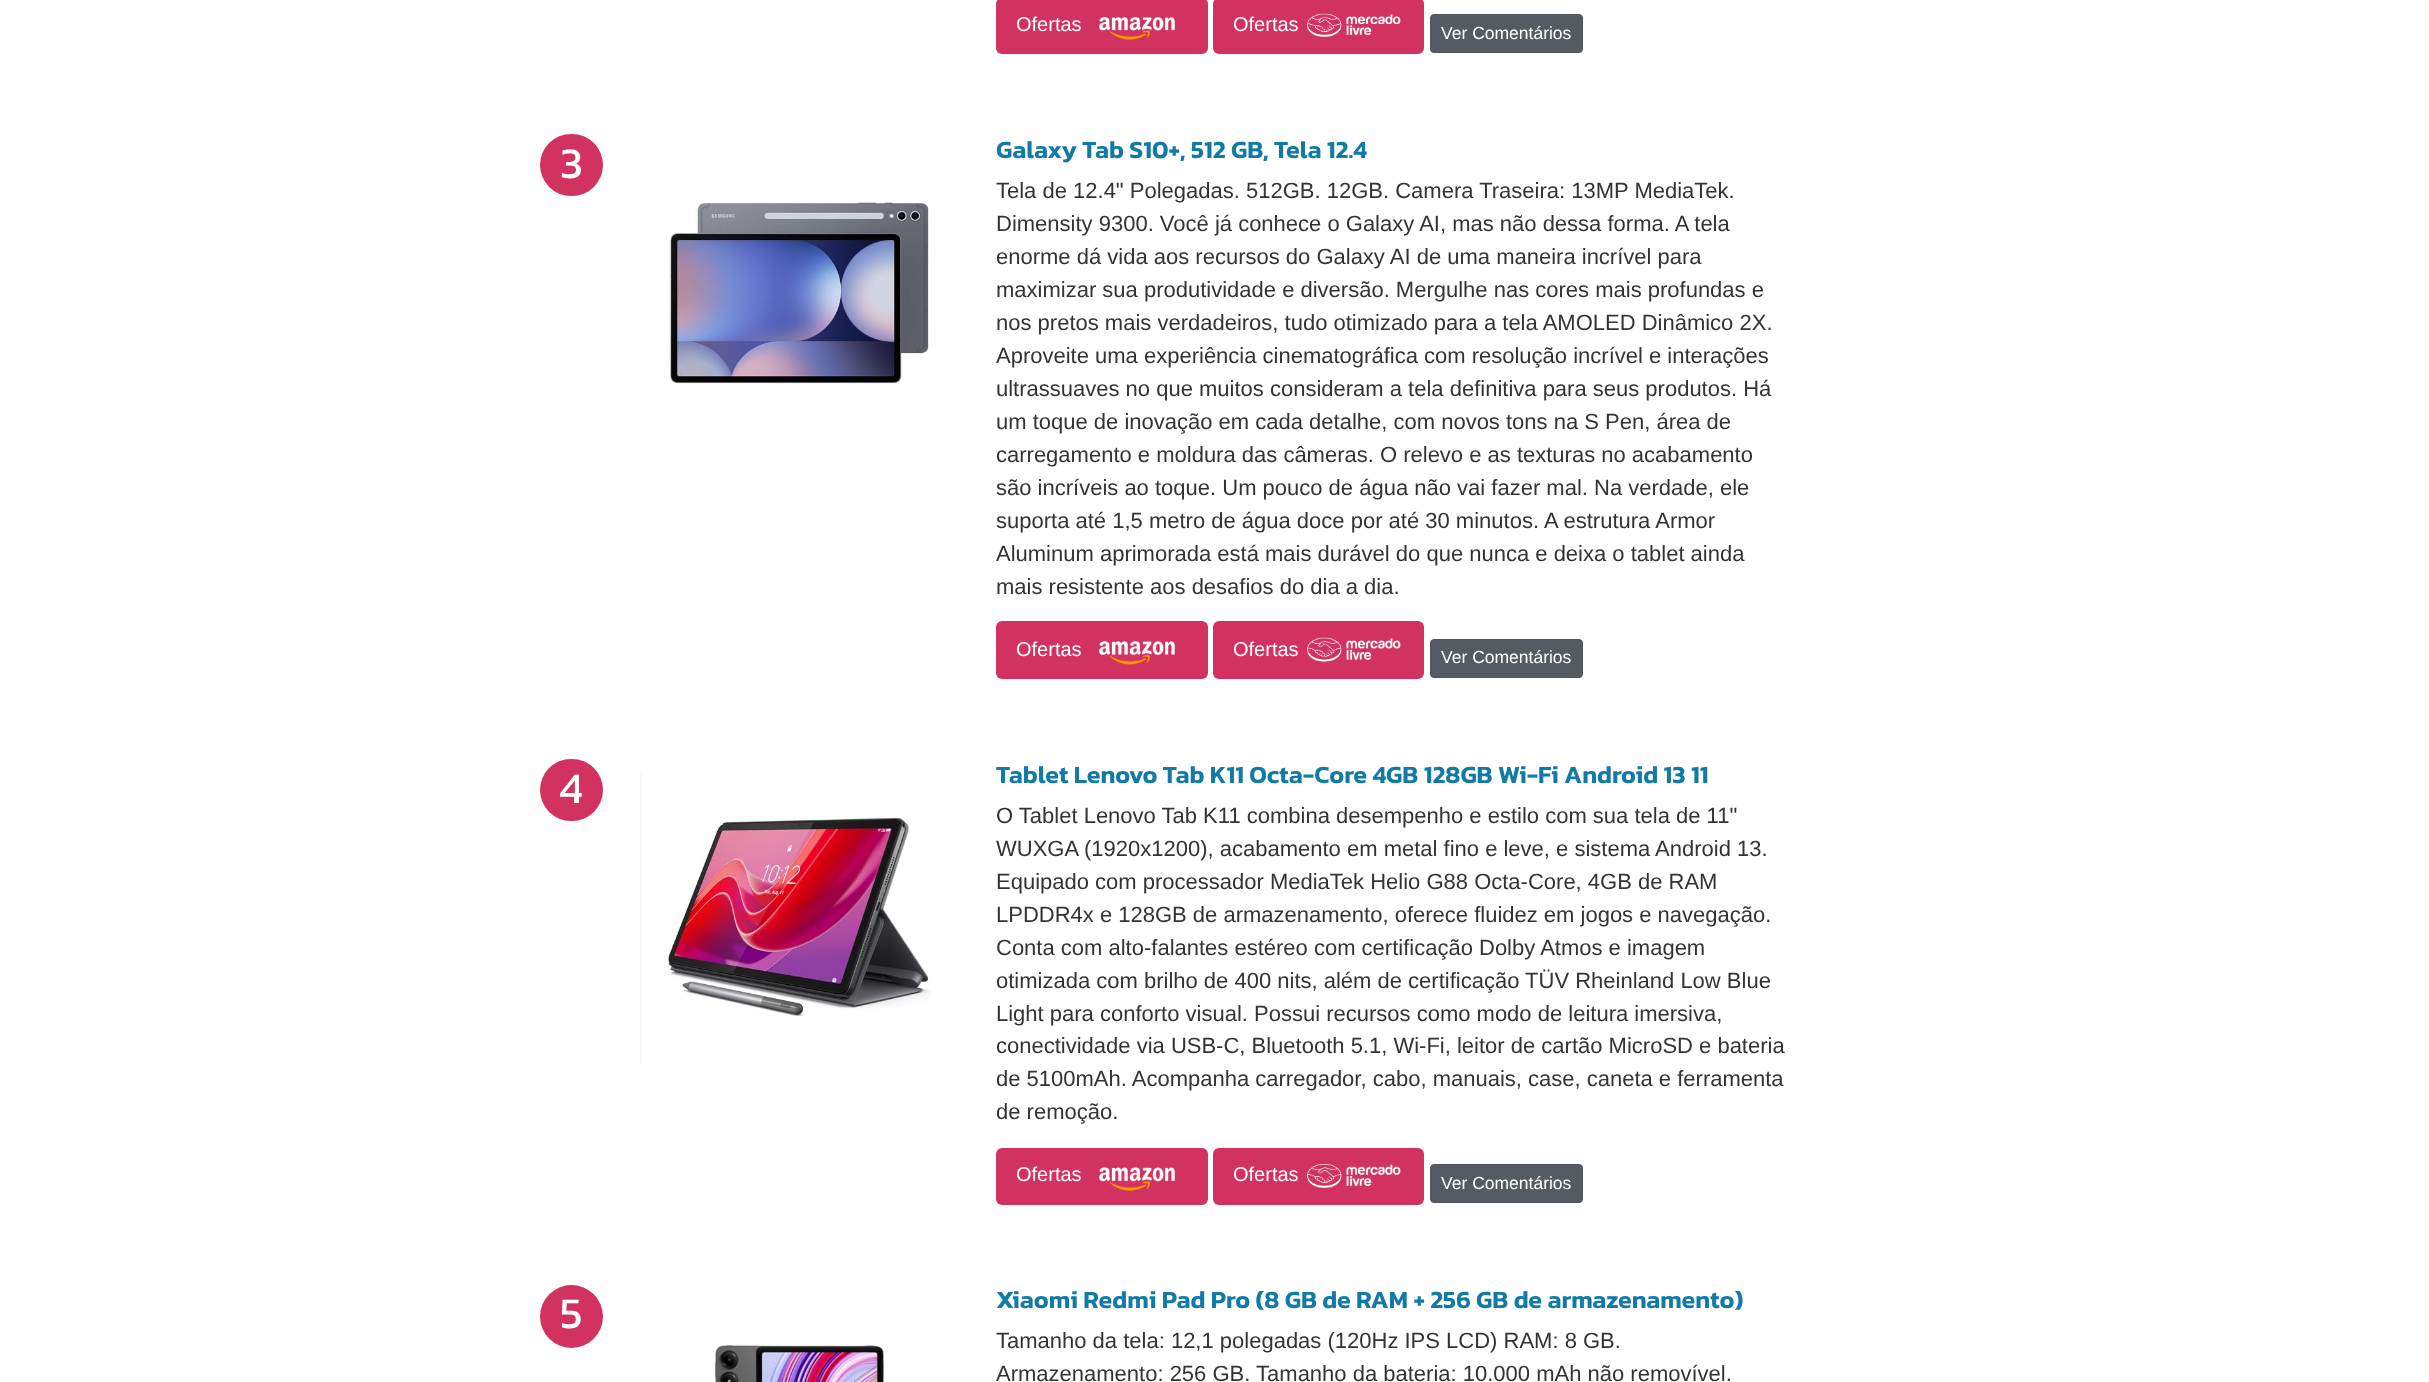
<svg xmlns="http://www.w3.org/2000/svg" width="2429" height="1382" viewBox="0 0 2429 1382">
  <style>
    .t1 { font: 20px Liberation Sans; fill: #fff; }
    .t2 { font: 17.5px Liberation Sans; fill: #fff; }
    .t3 { font: 44px Kanit; fill: #fff; }
    .t4 { font: 600 25px Kanit; fill: #117aa6; }
    .t5 { font: 22px Liberation Sans; fill: #333; }
  </style>
  <rect width="100%" height="100%" fill="#fff"/>
  <rect x="996" y="-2" width="212" height="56" rx="6" fill="#d13260"/>
  <text x="1016" y="31" class="t1">Ofertas</text>
  <image x="1099" y="17" width="76" height="23" href="images/1.png"/>
  <rect x="1213" y="-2" width="211" height="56" rx="6" fill="#d13260"/>
  <text x="1233" y="31" class="t1">Ofertas</text>
  <image x="1307" y="13" width="94" height="24" href="images/2.png"/>
  <rect x="1430.5" y="14.5" width="152" height="38" rx="3.5" fill="#545b62" stroke="#4e555b"/>
  <text x="1441" y="39" class="t2">Ver Comentários</text>
  <rect x="540" y="134" width="63" height="62" rx="31" fill="#d13260"/>
  <text x="560" y="178" class="t3">3</text>
  <text x="996" y="158" class="t4">Galaxy Tab S10+, 512 GB, Tela 12.4</text>
  <text x="996" y="198" class="t5">Tela de 12.4" Polegadas. 512GB. 12GB. Camera Traseira: 13MP MediaTek.</text>
  <text x="996" y="231" class="t5">Dimensity 9300. Você já conhece o Galaxy AI, mas não dessa forma. A tela</text>
  <text x="996" y="264" class="t5">enorme dá vida aos recursos do Galaxy AI de uma maneira incrível para</text>
  <text x="996" y="297" class="t5">maximizar sua produtividade e diversão. Mergulhe nas cores mais profundas e</text>
  <text x="996" y="330" class="t5">nos pretos mais verdadeiros, tudo otimizado para a tela AMOLED Dinâmico 2X.</text>
  <text x="996" y="363" class="t5">Aproveite uma experiência cinematográfica com resolução incrível e interações</text>
  <text x="996" y="396" class="t5">ultrassuaves no que muitos consideram a tela definitiva para seus produtos. Há</text>
  <text x="996" y="429" class="t5">um toque de inovação em cada detalhe, com novos tons na S Pen, área de</text>
  <text x="996" y="462" class="t5">carregamento e moldura das câmeras. O relevo e as texturas no acabamento</text>
  <text x="996" y="495" class="t5">são incríveis ao toque. Um pouco de água não vai fazer mal. Na verdade, ele</text>
  <text x="996" y="528" class="t5">suporta até 1,5 metro de água doce por até 30 minutos. A estrutura Armor</text>
  <text x="996" y="561" class="t5">Aluminum aprimorada está mais durável do que nunca e deixa o tablet ainda</text>
  <text x="996" y="594" class="t5">mais resistente aos desafios do dia a dia.</text>
  <rect x="996" y="621" width="212" height="58" rx="6" fill="#d13260"/>
  <text x="1016" y="656" class="t1">Ofertas</text>
  <image x="1099" y="641" width="76" height="24" href="images/3.png"/>
  <rect x="1213" y="621" width="211" height="58" rx="6" fill="#d13260"/>
  <text x="1233" y="656" class="t1">Ofertas</text>
  <image x="1307" y="637" width="94" height="25" href="images/4.png"/>
  <rect x="1430.5" y="639.5" width="152" height="38" rx="3.5" fill="#545b62" stroke="#4e555b"/>
  <text x="1441" y="663" class="t2">Ver Comentários</text>
  <image x="669" y="202" width="260" height="182" href="images/5.png"/>
  <rect x="540" y="759" width="63" height="62" rx="31" fill="#d13260"/>
  <text x="559" y="803" class="t3">4</text>
  <image x="640" y="771" width="292" height="294" href="images/6.png"/>
  <text x="996" y="783" class="t4">Tablet Lenovo Tab K11 Octa-Core 4GB 128GB Wi-Fi Android 13 11</text>
  <text x="996" y="823" class="t5">O Tablet Lenovo Tab K11 combina desempenho e estilo com sua tela de 11"</text>
  <text x="996" y="856" class="t5">WUXGA (1920x1200), acabamento em metal fino e leve, e sistema Android 13.</text>
  <text x="996" y="889" class="t5">Equipado com processador MediaTek Helio G88 Octa-Core, 4GB de RAM</text>
  <text x="996" y="922" class="t5">LPDDR4x e 128GB de armazenamento, oferece fluidez em jogos e navegação.</text>
  <text x="996" y="955" class="t5">Conta com alto-falantes estéreo com certificação Dolby Atmos e imagem</text>
  <text x="996" y="988" class="t5">otimizada com brilho de 400 nits, além de certificação TÜV Rheinland Low Blue</text>
  <text x="996" y="1021" class="t5">Light para conforto visual. Possui recursos como modo de leitura imersiva,</text>
  <text x="996" y="1053" class="t5">conectividade via USB-C, Bluetooth 5.1, Wi-Fi, leitor de cartão MicroSD e bateria</text>
  <text x="996" y="1086" class="t5">de 5100mAh. Acompanha carregador, cabo, manuais, case, caneta e ferramenta</text>
  <text x="996" y="1119" class="t5">de remoção.</text>
  <rect x="996" y="1148" width="212" height="57" rx="6" fill="#d13260"/>
  <text x="1016" y="1181" class="t1">Ofertas</text>
  <image x="1099" y="1167" width="76" height="24" href="images/7.png"/>
  <rect x="1213" y="1148" width="211" height="57" rx="6" fill="#d13260"/>
  <text x="1233" y="1181" class="t1">Ofertas</text>
  <image x="1307" y="1163" width="94" height="25" href="images/8.png"/>
  <rect x="1430.5" y="1164.5" width="152" height="38" rx="3.5" fill="#545b62" stroke="#4e555b"/>
  <text x="1441" y="1189" class="t2">Ver Comentários</text>
  <circle cx="571.5" cy="1316.5" r="31.5" fill="#d13260"/>
  <text x="560" y="1328" class="t3">5</text>
  <text x="996" y="1308" class="t4">Xiaomi Redmi Pad Pro (8 GB de RAM + 256 GB de armazenamento)</text>
  <text x="996" y="1348" class="t5">Tamanho da tela: 12,1 polegadas (120Hz IPS LCD) RAM: 8 GB.</text>
  <text x="996" y="1381" class="t5">Armazenamento: 256 GB. Tamanho da bateria: 10.000 mAh não removível.</text>
  <image x="714" y="1345" width="170" height="37" href="images/9.png"/>
</svg>
